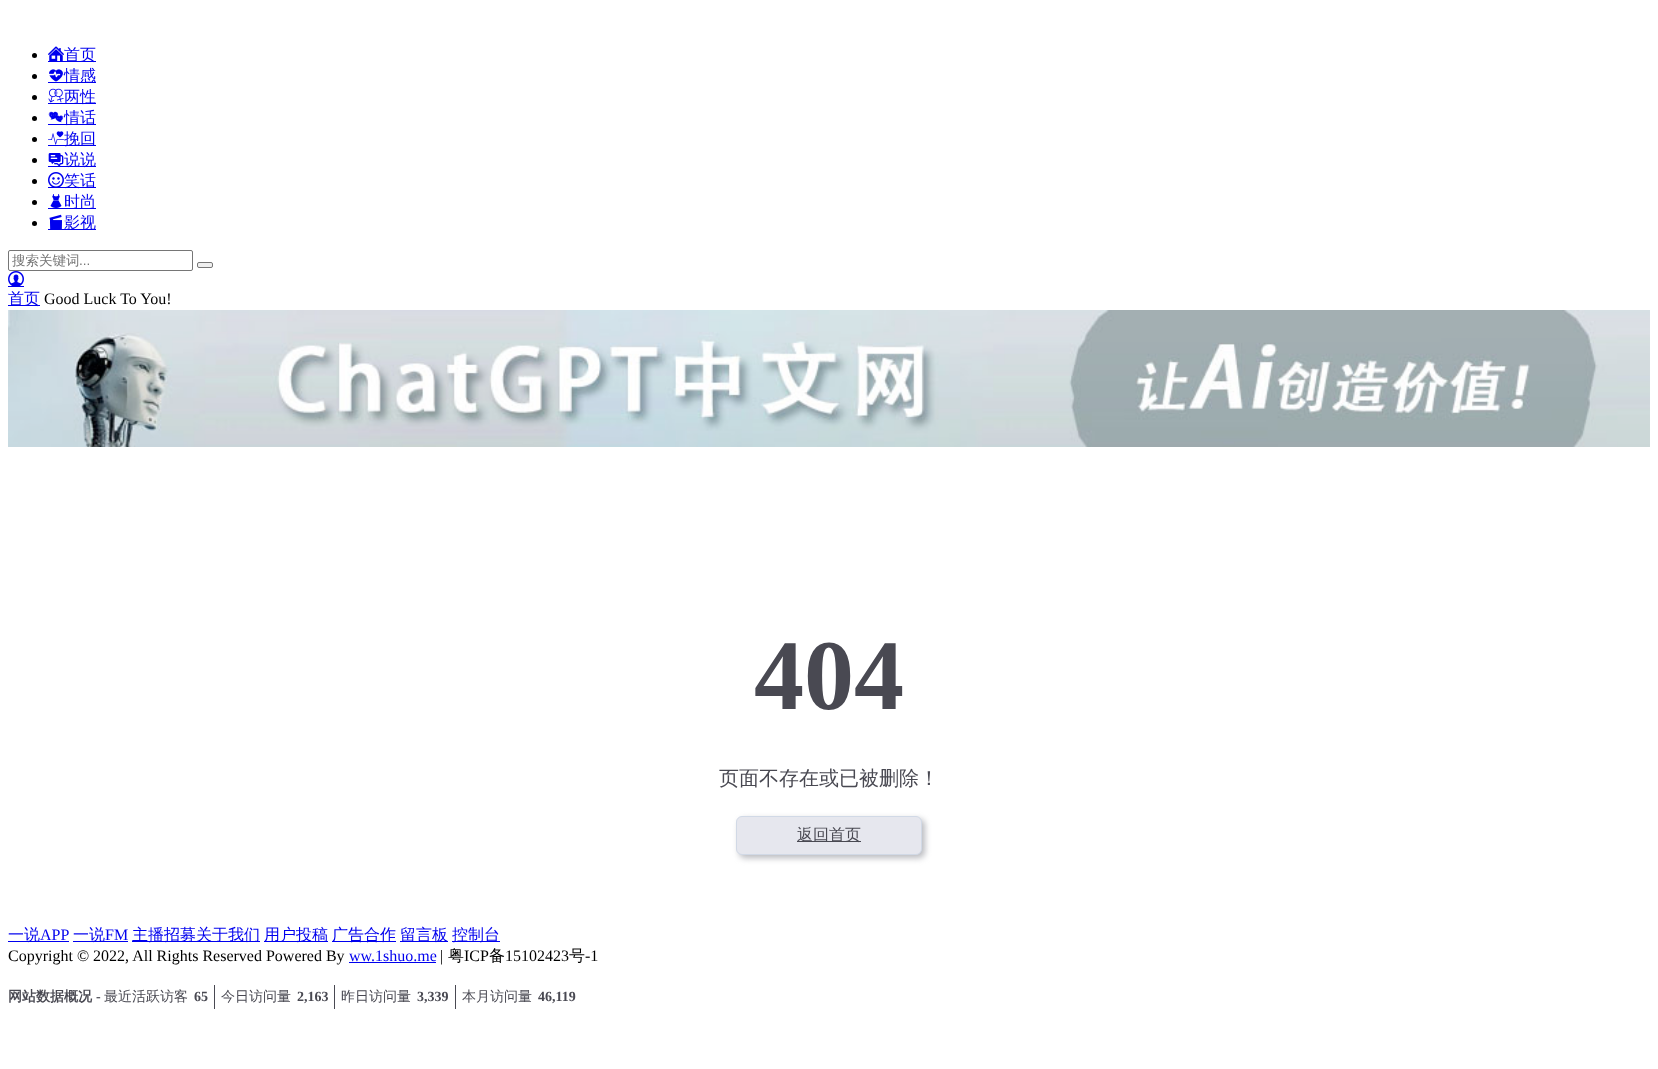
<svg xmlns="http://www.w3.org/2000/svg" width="1658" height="1069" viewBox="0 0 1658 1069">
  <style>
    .t1 { font: 500 16px WenQuanYi Zen Hei; fill: #00e; }
    .t2 { font: 500 13.5px WenQuanYi Zen Hei; fill: #757575; }
    .t3 { font: 13.5px Liberation Sans; fill: #757575; }
    .t4 { font: 16px Liberation Serif; fill: #000; }
    .t5 { font: bold 100px Liberation Serif; fill: #494952; }
    .t6 { font: 500 20px WenQuanYi Zen Hei; fill: #494952; }
    .t7 { font: 500 16px WenQuanYi Zen Hei; fill: #494952; }
    .t8 { font: 16px Liberation Serif; fill: #00e; }
    .t9 { font: 500 16px WenQuanYi Zen Hei; fill: #000; }
    .t10 { font: bold 14px WenQuanYi Zen Hei; fill: #494952; }
    .t11 { font: bold 14px Liberation Serif; fill: #494952; }
    .t12 { font: 500 14px WenQuanYi Zen Hei; fill: #494952; }
  </style>
  <rect width="100%" height="100%" fill="#fff"/>
  <circle cx="34.5" cy="55.5" r="2.5" fill="#000"/>
  <image x="48" y="46" width="16" height="15" href="images/1.png"/>
  <rect x="48" y="61" width="48" height="1" fill="#00e"/>
  <text x="64" y="60" class="t1">首页</text>
  <circle cx="34.5" cy="76.5" r="2.5" fill="#000"/>
  <image x="49" y="69" width="14" height="13" href="images/2.png"/>
  <rect x="48" y="82" width="48" height="1" fill="#00e"/>
  <text x="64" y="81" class="t1">情感</text>
  <circle cx="34.5" cy="97.5" r="2.5" fill="#000"/>
  <image x="48" y="88" width="16" height="15" href="images/3.png"/>
  <rect x="48" y="103" width="48" height="1" fill="#00e"/>
  <text x="64" y="102" class="t1">两性</text>
  <circle cx="34.5" cy="118.5" r="2.5" fill="#000"/>
  <image x="48" y="111" width="16" height="12" href="images/4.png"/>
  <rect x="48" y="124" width="48" height="1" fill="#00e"/>
  <text x="64" y="123" class="t1">情话</text>
  <circle cx="34.5" cy="139.5" r="2.5" fill="#000"/>
  <image x="48" y="131" width="16" height="14" href="images/5.png"/>
  <rect x="48" y="145" width="48" height="1" fill="#00e"/>
  <text x="64" y="144" class="t1">挽回</text>
  <circle cx="34.5" cy="160.5" r="2.5" fill="#000"/>
  <image x="48" y="153" width="16" height="13" href="images/6.png"/>
  <rect x="48" y="166" width="48" height="1" fill="#00e"/>
  <text x="64" y="165" class="t1">说说</text>
  <circle cx="34.5" cy="181.5" r="2.5" fill="#000"/>
  <image x="48" y="172" width="16" height="15" href="images/7.png"/>
  <rect x="48" y="187" width="48" height="1" fill="#00e"/>
  <text x="64" y="186" class="t1">笑话</text>
  <circle cx="34.5" cy="202.5" r="2.5" fill="#000"/>
  <image x="50" y="194" width="12" height="14" href="images/8.png"/>
  <rect x="48" y="208" width="48" height="1" fill="#00e"/>
  <text x="64" y="207" class="t1">时尚</text>
  <circle cx="34.5" cy="223.5" r="2.5" fill="#000"/>
  <image x="49" y="214" width="13" height="15" href="images/9.png"/>
  <rect x="48" y="229" width="48" height="1" fill="#00e"/>
  <text x="64" y="228" class="t1">影视</text>
  <rect x="8.5" y="250.5" width="184" height="20" rx="1.5" fill="none" stroke="#767676"/>
  <text x="12" y="265" class="t2">搜索关键词</text>
  <text x="79" y="265" class="t3">...</text>
  <rect x="197.5" y="262.5" width="15" height="5" rx="1.5" fill="#efefef" stroke="#767676"/>
  <image x="8" y="271" width="16" height="15" href="images/10.png"/>
  <rect x="8" y="286" width="16" height="1" fill="#00e"/>
  <rect x="8" y="305" width="32" height="1" fill="#00e"/>
  <text x="8" y="304" class="t1">首页</text>
  <text x="44" y="304" class="t4">Good Luck To You!</text>
  <image x="8" y="310" width="1642" height="137" href="images/11.png"/>
  <text x="754" y="709" class="t5">404</text>
  <text x="719" y="785" class="t6">页面不存在或已被删除！</text>
  <rect x="739" y="819" width="186" height="39" rx="6" fill="#b8b9be" filter="blur(3px)"/>
  <rect x="736.5" y="816.5" width="185" height="38" rx="5.5" fill="#e6e7ee" stroke="#d1d9e6"/>
  <rect x="797" y="841" width="64" height="1" fill="#494952"/>
  <text x="797" y="840" class="t7">返回首页</text>
  <rect x="8" y="941" width="61" height="1" fill="#00e"/>
  <text x="8" y="940" class="t1">一说</text>
  <text x="40" y="940" class="t8">APP</text>
  <rect x="73" y="941" width="55" height="1" fill="#00e"/>
  <text x="73" y="940" class="t1">一说</text>
  <text x="105" y="940" class="t8">FM</text>
  <rect x="132" y="941" width="128" height="1" fill="#00e"/>
  <text x="132" y="940" class="t1">主播招募关于我们</text>
  <rect x="264" y="941" width="64" height="1" fill="#00e"/>
  <text x="264" y="940" class="t1">用户投稿</text>
  <rect x="332" y="941" width="64" height="1" fill="#00e"/>
  <text x="332" y="940" class="t1">广告合作</text>
  <rect x="400" y="941" width="48" height="1" fill="#00e"/>
  <text x="400" y="940" class="t1">留言板</text>
  <rect x="452" y="941" width="48" height="1" fill="#00e"/>
  <text x="452" y="940" class="t1">控制台</text>
  <text x="8" y="961" class="t4">Copyright © 2022, All Rights Reserved Powered By</text>
  <text x="349" y="961" class="t8">ww.1shuo.me</text>
  <rect x="349" y="962" width="87" height="1" fill="#00e"/>
  <text x="440" y="961" class="t4">|</text>
  <text x="448" y="961" class="t9">粤</text>
  <text x="464" y="961" class="t4">ICP</text>
  <text x="489" y="961" class="t9">备</text>
  <text x="505" y="961" class="t4">15102423</text>
  <text x="569" y="961" class="t9">号</text>
  <text x="585" y="961" class="t4">-1</text>
  <text x="8" y="1001" class="t10">网站数据概况</text>
  <text x="96" y="1001" class="t11">-</text>
  <text x="104" y="1001" class="t12">最近活跃访客</text>
  <text x="194" y="1001" class="t11">65</text>
  <rect x="214" y="985" width="1" height="24" fill="#494952"/>
  <text x="221" y="1001" class="t12">今日访问量</text>
  <text x="297" y="1001" class="t11">2,163</text>
  <rect x="334" y="985" width="1" height="24" fill="#494952"/>
  <text x="341" y="1001" class="t12">昨日访问量</text>
  <text x="417" y="1001" class="t11">3,339</text>
  <rect x="455" y="985" width="1" height="24" fill="#494952"/>
  <text x="462" y="1001" class="t12">本月访问量</text>
  <text x="538" y="1001" class="t11">46,119</text>
</svg>
